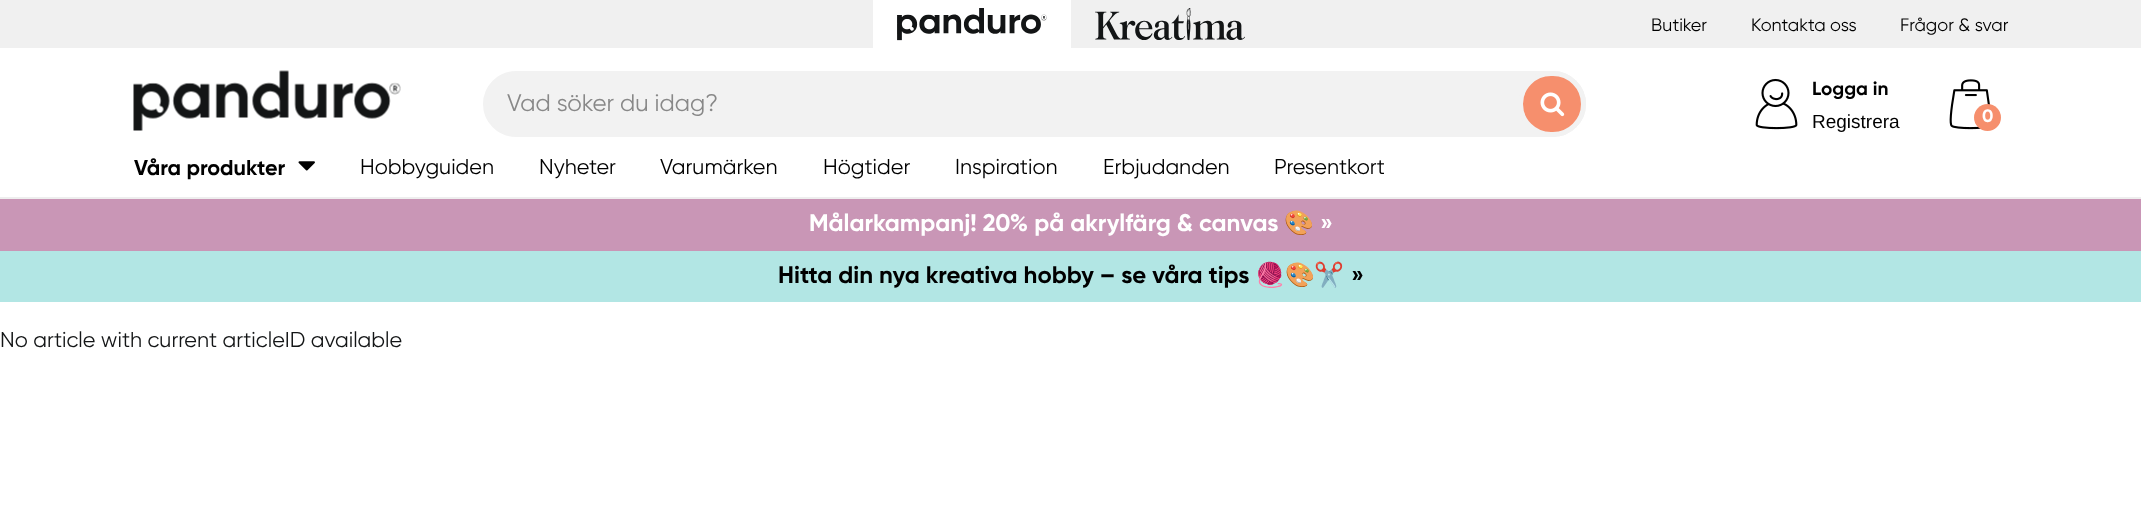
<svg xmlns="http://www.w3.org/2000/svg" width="2141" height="507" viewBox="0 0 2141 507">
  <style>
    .t1 { font: 18px Gilroy; fill: #000; }
    .t2 { font: 24px Gilroy; fill: #888; }
    .t3 { font: bold 19px Gilroy; fill: #000; }
    .t4 { font: 19px Liberation Sans; fill: #000; }
    .t5 { font: bold 18px Gilroy; fill: #fff; }
    .t6 { font: bold 21.6px Gilroy; fill: #000; }
    .t7 { font: 21.6px Gilroy; fill: #000; }
    .t8 { font: bold 24px Gilroy; fill: #fff; }
    .t9 { font: 24px Noto Color Emoji; fill: #fff; }
    .t10 { font: bold 24px Gilroy; fill: #000; }
    .t11 { font: 24px Noto Color Emoji; fill: #000; }
    .t12 { font: 21.6px Gilroy; fill: #131516; }
  </style>
  <rect width="100%" height="100%" fill="#fff"/>
  <rect x="0" y="197" width="2141" height="2" fill="#eee"/>
  <rect x="0" y="0" width="2141" height="48" fill="#f0f0f0"/>
  <rect x="873" y="0" width="198" height="48" fill="#fff"/>
  <image x="897" y="8" width="150" height="33" href="images/1.png"/>
  <image x="1095" y="8" width="150" height="33" href="images/2.png"/>
  <text x="1651" y="31" class="t1">Butiker</text>
  <text x="1751" y="31" class="t1">Kontakta oss</text>
  <text x="1900" y="31" class="t1">Frågor &amp; svar</text>
  <image x="133" y="70" width="268" height="61" href="images/3.png"/>
  <rect x="484" y="72" width="1101" height="64" rx="32" fill="#f2f2f2" stroke="#f2f2f2" stroke-width="2"/>
  <text x="507" y="111" class="t2">Vad söker du idag?</text>
  <rect x="1520.5" y="73.5" width="63" height="61" rx="30.5" fill="#f68f6d" stroke="#f2f2f2" stroke-width="5"/>
  <image x="1540" y="92" width="25" height="25" href="images/4.png"/>
  <image x="1755" y="78" width="43" height="52" href="images/5.png"/>
  <text x="1812" y="95" class="t3">Logga in</text>
  <text x="1812" y="128" class="t4">Registrera</text>
  <image x="1949" y="79" width="41" height="51" href="images/6.png"/>
  <circle cx="1987.5" cy="117.5" r="13.5" fill="#f68f6d"/>
  <text x="1982" y="122" class="t5">0</text>
  <text x="134" y="175" class="t6">Våra produkter</text>
  <image x="298" y="161" width="17" height="10" href="images/7.png"/>
  <text x="360" y="174" class="t7">Hobbyguiden</text>
  <text x="539" y="174" class="t7">Nyheter</text>
  <text x="660" y="174" class="t7">Varumärken</text>
  <text x="823" y="174" class="t7">Högtider</text>
  <text x="955" y="174" class="t7">Inspiration</text>
  <text x="1103" y="174" class="t7">Erbjudanden</text>
  <text x="1274" y="174" class="t7">Presentkort</text>
  <rect x="0" y="199" width="2141" height="52" fill="#c996b6"/>
  <text x="809" y="231" class="t8">Målarkampanj! 20% på akrylfärg &amp; canvas</text>
  <text x="1284" y="231" class="t9">🎨</text>
  <text x="1320" y="231" class="t8">»</text>
  <rect x="0" y="251" width="2141" height="51" fill="#b2e6e4"/>
  <text x="778" y="283" class="t10">Hitta din nya kreativa hobby – se våra tips</text>
  <text x="1255" y="283" class="t11">🧶🎨✂️</text>
  <text x="1351" y="283" class="t10">»</text>
  <text x="0" y="347" class="t12">No article with current articleID available</text>
</svg>
